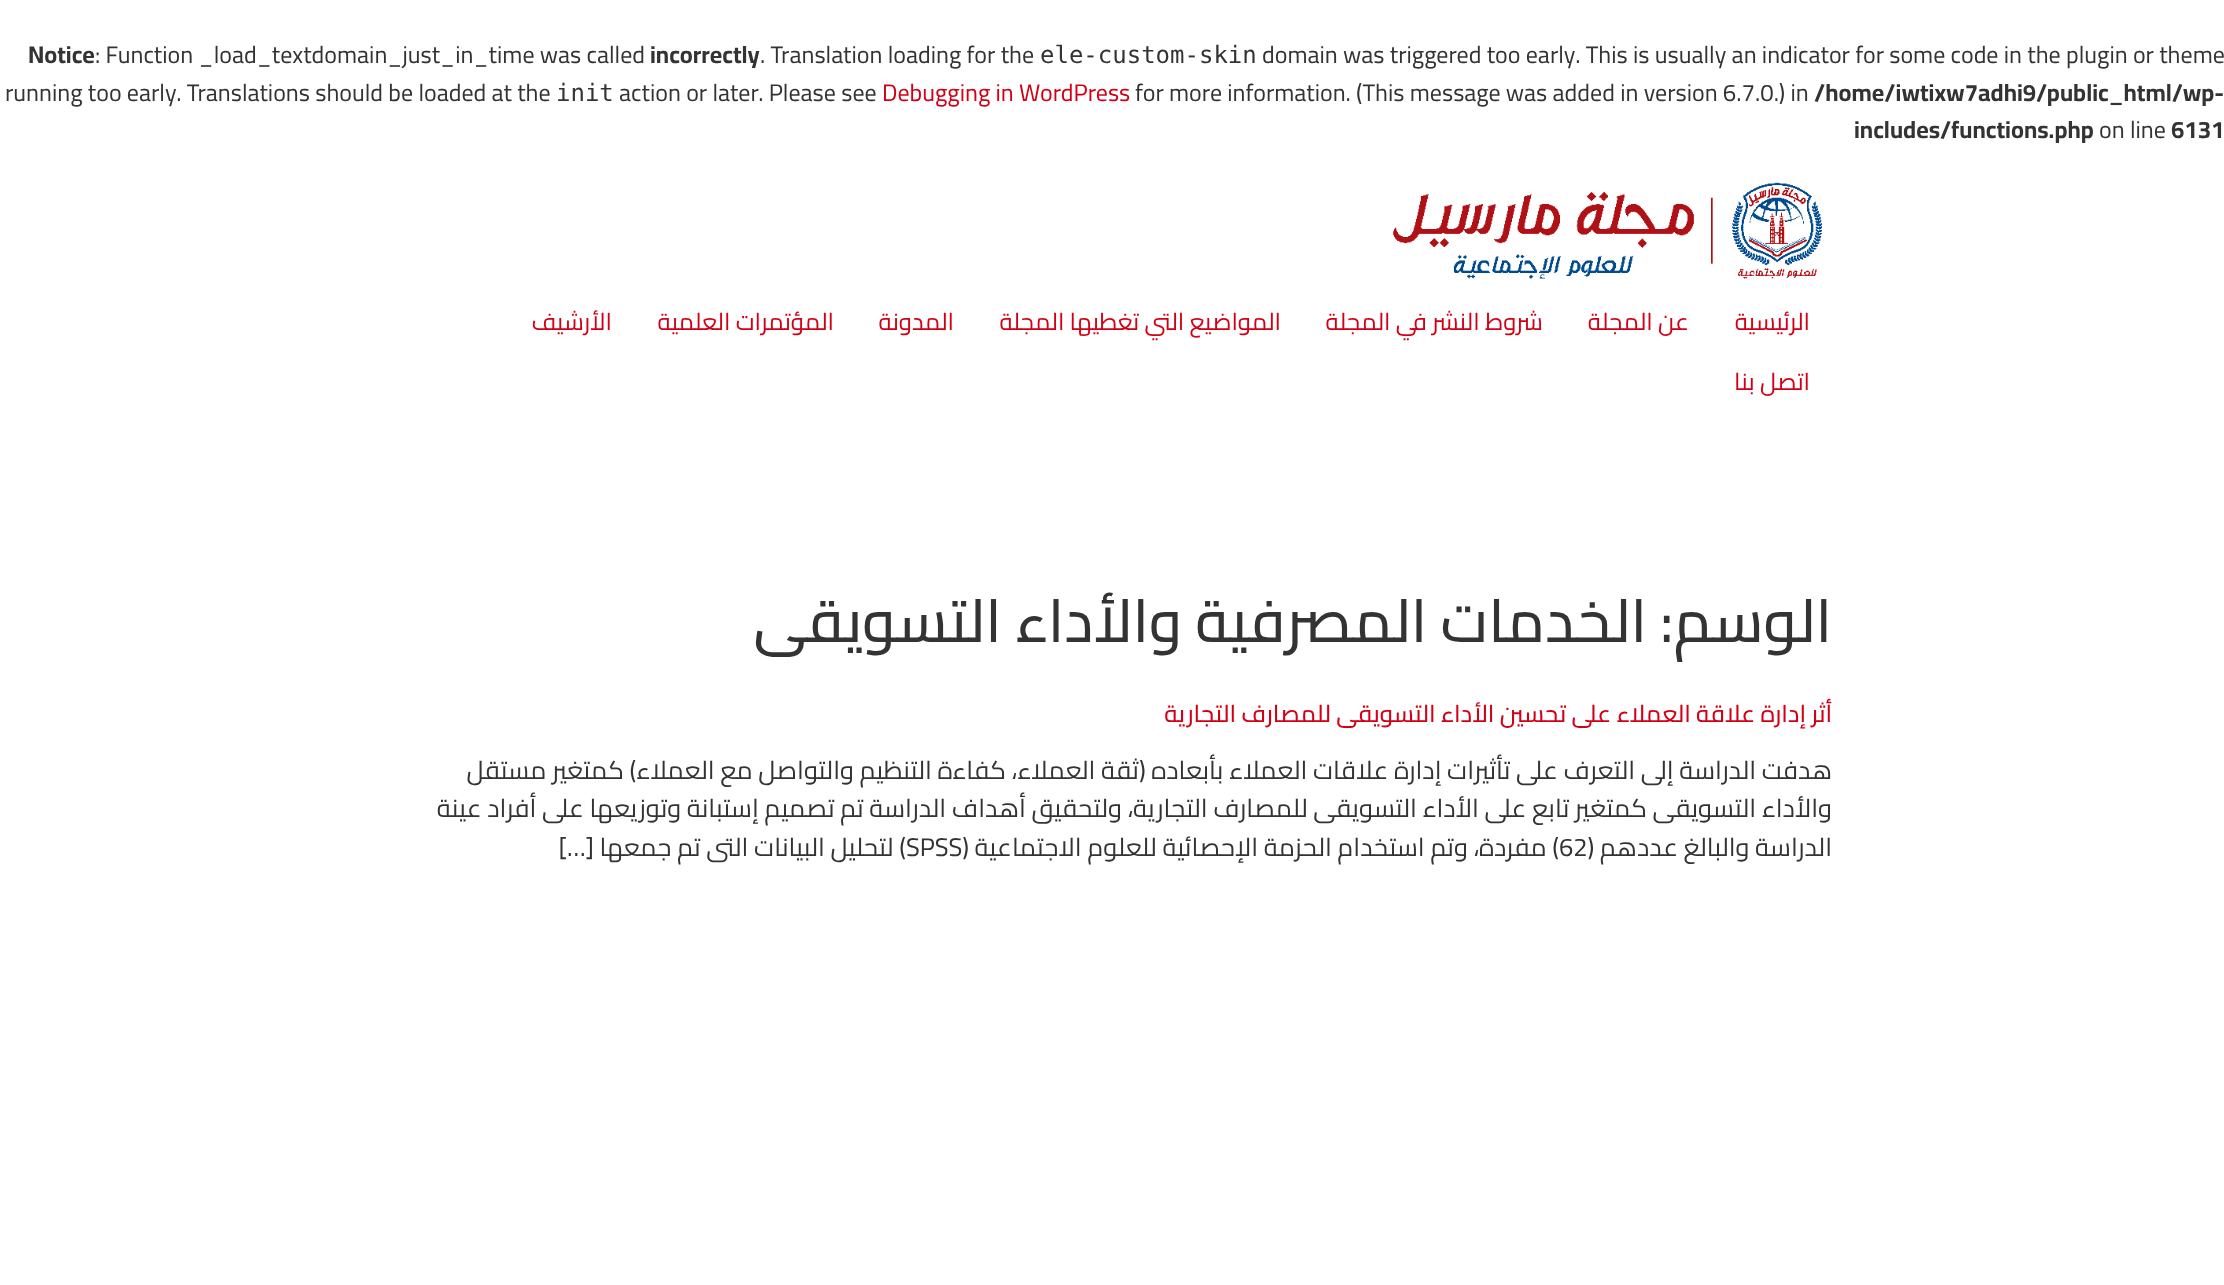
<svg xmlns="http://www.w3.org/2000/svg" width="2224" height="1285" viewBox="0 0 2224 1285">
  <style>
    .t1 { font: 24px Cairo; fill: #333; }
    .t2 { font: 24px DejaVu Sans Mono; fill: #333; }
    .t3 { font: bold 24px Cairo; fill: #333; }
    .t4 { font: 24px Cairo; fill: #d30015; }
    .t5 { font: 24px Cairo; direction: rtl; fill: #d30015; }
    .t6 { font: 500 60px Cairo; direction: rtl; fill: #333; }
    .t7 { font: 500 24px Cairo; direction: rtl; fill: #d30015; }
    .t8 { font: 25.5px Cairo; direction: rtl; fill: #333; }
    .t9 { font: 25.5px Cairo; fill: #333; }
  </style>
  <rect width="100%" height="100%" fill="#fff"/>
  <text x="1262" y="63" class="t1">domain was triggered too early. This is usually an indicator for some code in the plugin or theme</text>
  <text x="1040" y="63" class="t2">ele-custom-skin</text>
  <text x="760" y="63" class="t1">. Translation loading for the</text>
  <text x="650" y="63" class="t3">incorrectly</text>
  <text x="95" y="63" class="t1">: Function _load_textdomain_just_in_time was called</text>
  <text x="28" y="63" class="t3">Notice</text>
  <text x="1814" y="101" class="t3">/home/iwtixw7adhi9/public_html/wp-</text>
  <text x="1135" y="101" class="t1">for more information. (This message was added in version 6.7.0.) in</text>
  <text x="882" y="101" class="t4">Debugging in WordPress</text>
  <text x="619" y="101" class="t1">action or later. Please see</text>
  <text x="556" y="101" class="t2">init</text>
  <text x="5" y="101" class="t1">running too early. Translations should be loaded at the</text>
  <text x="2171" y="138" class="t3">6131</text>
  <text x="2099" y="138" class="t1">on line</text>
  <text x="1854" y="138" class="t3">includes/functions.php</text>
  <image x="1393" y="182" width="429" height="97" href="images/1.png"/>
  <text x="1810" y="330" class="t5">الرئيسية</text>
  <text x="1689" y="330" class="t5">عن المجلة</text>
  <text x="1543" y="330" class="t5">شروط النشر في المجلة</text>
  <text x="1281" y="330" class="t5">المواضيع التي تغطيها المجلة</text>
  <text x="954" y="330" class="t5">المدونة</text>
  <text x="834" y="330" class="t5">المؤتمرات العلمية</text>
  <text x="612" y="330" class="t5">الأرشيف</text>
  <text x="1810" y="390" class="t5">اتصل بنا</text>
  <text x="1832" y="642" class="t6">الوسم:</text>
  <text x="1647" y="642" class="t6">الخدمات المصرفية والأداء التسويقى</text>
  <text x="1832" y="722" class="t7">أثر إدارة علاقة العملاء على تحسين الأداء التسويقى للمصارف التجارية</text>
  <text x="1832" y="779" class="t8">هدفت الدراسة إلى التعرف على تأثيرات إدارة علاقات العملاء بأبعاده (ثقة العملاء، كفاءة التنظيم والتواصل مع العملاء) كمتغير مستقل</text>
  <text x="1832" y="817" class="t8">والأداء التسويقى كمتغير تابع على الأداء التسويقى للمصارف التجارية، ولتحقيق أهداف الدراسة تم تصميم إستبانة وتوزيعها على أفراد عينة</text>
  <text x="1832" y="856" class="t8">الدراسة والبالغ عددهم (</text>
  <text x="1559" y="856" class="t9">62</text>
  <text x="1559" y="856" class="t8">) مفردة، وتم استخدام الحزمة الإحصائية للعلوم الاجتماعية (</text>
  <text x="906" y="856" class="t9">SPSS</text>
  <text x="906" y="856" class="t8">) لتحليل البيانات التى تم جمعها […]</text>
</svg>
